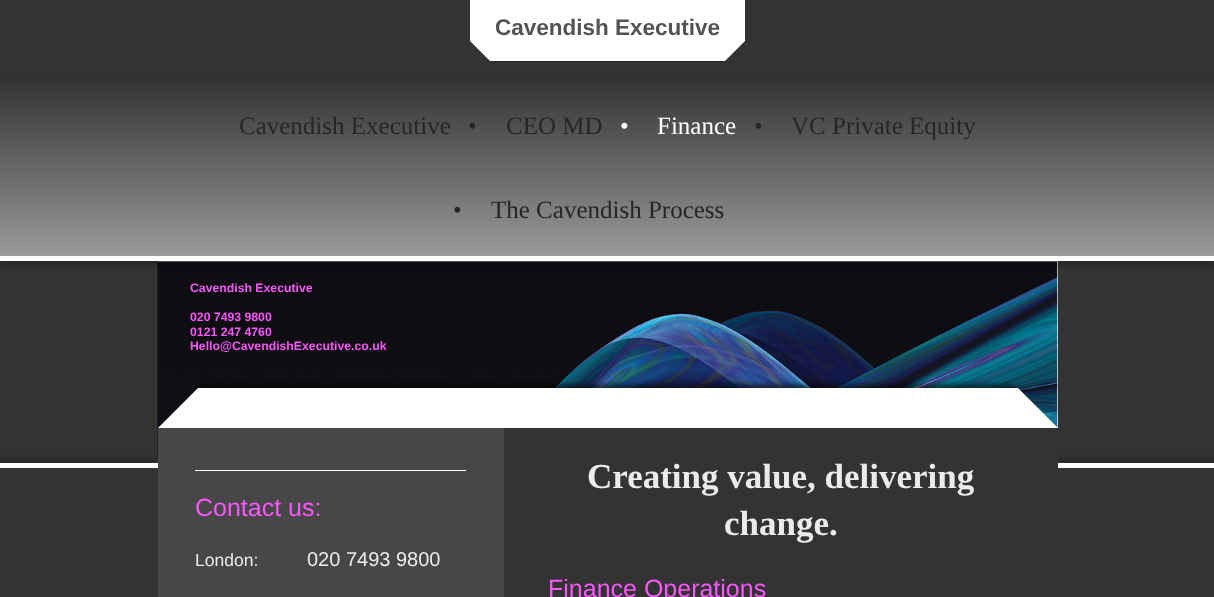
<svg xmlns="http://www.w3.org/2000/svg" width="1214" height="597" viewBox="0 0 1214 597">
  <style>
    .t1 { font: bold 22.5px Liberation Sans; fill: #535353; }
    .t2 { font: 25px Liberation Serif; fill: #262626; }
    .t3 { font: 25px Liberation Serif; fill: #fff; }
    .t4 { font: bold 12.25px Liberation Sans; fill: #f957fb; }
    .t5 { font: bold 35px Liberation Serif; fill: #ebebeb; }
    .t6 { font: 25px Liberation Sans; fill: #f957fb; }
    .t7 { font: 17.5px Liberation Sans; fill: #ebebeb; }
    .t8 { font: 20px Liberation Sans; fill: #ebebeb; }
  </style>
  <defs>
    <linearGradient id="g1" gradientUnits="userSpaceOnUse" x1="608" y1="76" x2="608" y2="256"><stop offset="0" stop-color="#333"/><stop offset="1" stop-color="#999"/></linearGradient>
    <clipPath id="clip1"><rect x="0" y="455" width="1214" height="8"/></clipPath>
  </defs>
  <rect width="100%" height="100%" fill="#333"/>
  <rect x="490" y="41" width="235" height="20" fill="#00000080" filter="blur(1px)"/>
  <rect x="470" y="0" width="275" height="41" fill="#fff"/>
  <text x="495" y="35" class="t1">Cavendish Executive</text>
  <path d="M470 41H745L725 61H490Z" fill="#fff"/>
  <image x="157" y="261" width="1" height="202" href="images/1.png"/>
  <rect x="158" y="261" width="900" height="167" fill="#eee"/>
  <image x="157" y="261" width="901" height="202" href="images/2.png"/>
  <rect x="0" y="81" width="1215" height="185" fill="#00000033" filter="blur(2.5px)"/>
  <rect x="0" y="79" width="1214" height="177" fill="url(#g1)"/>
  <rect x="0" y="256" width="1214" height="5" fill="#fff"/>
  <text x="239" y="134" class="t2">Cavendish Executive</text>
  <text x="468" y="134" class="t2">•</text>
  <text x="506" y="134" class="t2">CEO MD</text>
  <text x="620" y="134" class="t3">•</text>
  <text x="657" y="134" class="t3">Finance</text>
  <text x="754" y="134" class="t2">•</text>
  <text x="791" y="134" class="t2">VC Private Equity</text>
  <text x="453" y="218" class="t2">•</text>
  <text x="491" y="218" class="t2">The Cavendish Process</text>
  <text x="190" y="292" class="t4">Cavendish Executive</text>
  <text x="190" y="321" class="t4">020 7493 9800</text>
  <text x="190" y="336" class="t4">0121 247 4760</text>
  <text x="190" y="350" class="t4">Hello@CavendishExecutive.co.uk</text>
  <g clip-path="url(#clip1)">
    <rect x="0" y="458" width="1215" height="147" fill="#00000033" filter="blur(2.5px)"/>
  </g>
  <rect x="0" y="463" width="1214" height="5" fill="#fff"/>
  <rect x="504" y="428" width="554" height="40" fill="#333"/>
  <rect x="159" y="426" width="1" height="1" fill="#333"/>
  <rect x="198" y="384" width="820" height="20" rx="10" fill="#00000080" filter="blur(2px)"/>
  <path d="M1058 428H158L198 388H1018Z" fill="#fff"/>
  <rect x="158" y="428" width="346" height="169" fill="#474747"/>
  <text x="587" y="488" class="t5">Creating value, delivering</text>
  <text x="724" y="535" class="t5">change.</text>
  <text x="548" y="597" class="t6">Finance Operations</text>
  <rect x="195" y="470" width="271" height="1" fill="#fff"/>
  <text x="195" y="516" class="t6">Contact us:</text>
  <text x="195" y="566" class="t7">London:</text>
  <text x="307" y="566" class="t8">020 7493 9800</text>
</svg>
